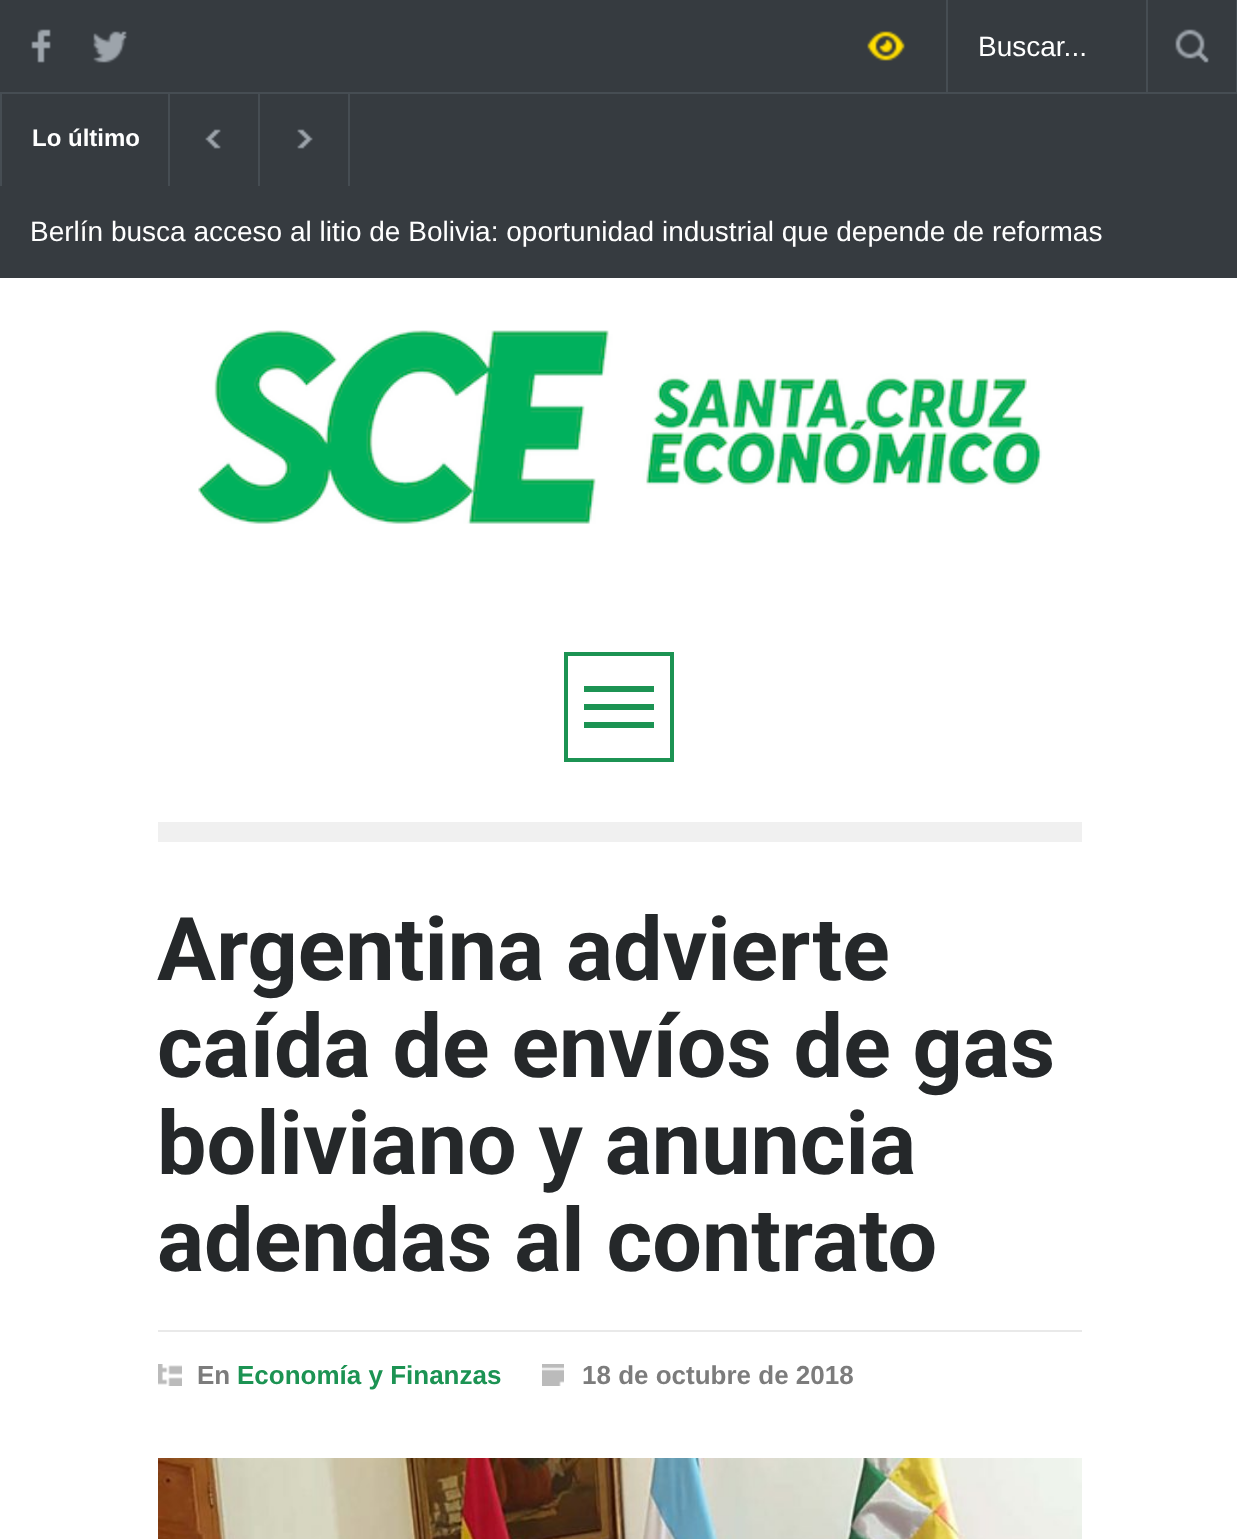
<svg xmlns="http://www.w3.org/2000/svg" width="1237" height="1539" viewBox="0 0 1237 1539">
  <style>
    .t1 { font: 28px Liberation Sans; fill: #fff; }
    .t2 { font: bold 24px Liberation Sans; fill: #fff; }
    .t3 { font: bold 88px Roboto; fill: #25282a; }
    .t4 { font: bold 26px Liberation Sans; fill: #7c7c7c; }
    .t5 { font: bold 26px Liberation Sans; fill: #1c9353; }
  </style>
  <rect width="100%" height="100%" fill="#fff"/>
  <rect x="0" y="0" width="1237" height="278" fill="#363b40"/>
  <image x="31" y="29" width="20" height="34" href="images/1.png"/>
  <image x="93" y="31" width="34" height="32" href="images/2.png"/>
  <image x="867" y="31" width="38" height="30" href="images/3.png"/>
  <rect x="1236" y="0" width="1" height="92" fill="#464d53"/>
  <rect x="946" y="0" width="2" height="92" fill="#464d53"/>
  <rect x="1146" y="0" width="2" height="92" fill="#464d53"/>
  <text x="978" y="56" class="t1">Buscar...</text>
  <image x="1175" y="29" width="34" height="34" href="images/4.png"/>
  <rect x="0" y="92" width="1237" height="2" fill="#464d53"/>
  <rect x="168" y="94" width="2" height="92" fill="#464d53"/>
  <rect x="0" y="94" width="2" height="92" fill="#464d53"/>
  <text x="32" y="146" class="t2">Lo último</text>
  <rect x="258" y="94" width="2" height="92" fill="#464d53"/>
  <image x="205" y="129" width="16" height="20" href="images/5.png"/>
  <rect x="348" y="94" width="2" height="92" fill="#464d53"/>
  <image x="297" y="129" width="16" height="20" href="images/6.png"/>
  <text x="30" y="241" class="t1">Berlín busca acceso al litio de Bolivia: oportunidad industrial que depende de reformas</text>
  <image x="198" y="330" width="844" height="194" href="images/7.png"/>
  <rect x="566" y="654" width="106" height="106" fill="none" stroke="#1c9353" stroke-width="4"/>
  <rect x="584" y="686" width="70" height="6" fill="#1c9353"/>
  <rect x="584" y="704" width="70" height="6" fill="#1c9353"/>
  <rect x="584" y="722" width="70" height="6" fill="#1c9353"/>
  <rect x="158" y="822" width="924" height="20" fill="#f0f0f0"/>
  <text x="157" y="980" class="t3">Argentina advierte</text>
  <text x="157" y="1077" class="t3">caída de envíos de gas</text>
  <text x="157" y="1174" class="t3">boliviano y anuncia</text>
  <text x="157" y="1271" class="t3">adendas al contrato</text>
  <rect x="158" y="1330" width="924" height="2" fill="#e9e9e9"/>
  <image x="158" y="1364" width="24" height="22" href="images/8.png"/>
  <text x="197" y="1384" class="t4">En</text>
  <text x="237" y="1384" class="t5">Economía y Finanzas</text>
  <image x="542" y="1364" width="22" height="22" href="images/9.png"/>
  <text x="582" y="1384" class="t4">18 de octubre de 2018</text>
  <image x="158" y="1458" width="924" height="81" href="images/10.png"/>
</svg>
